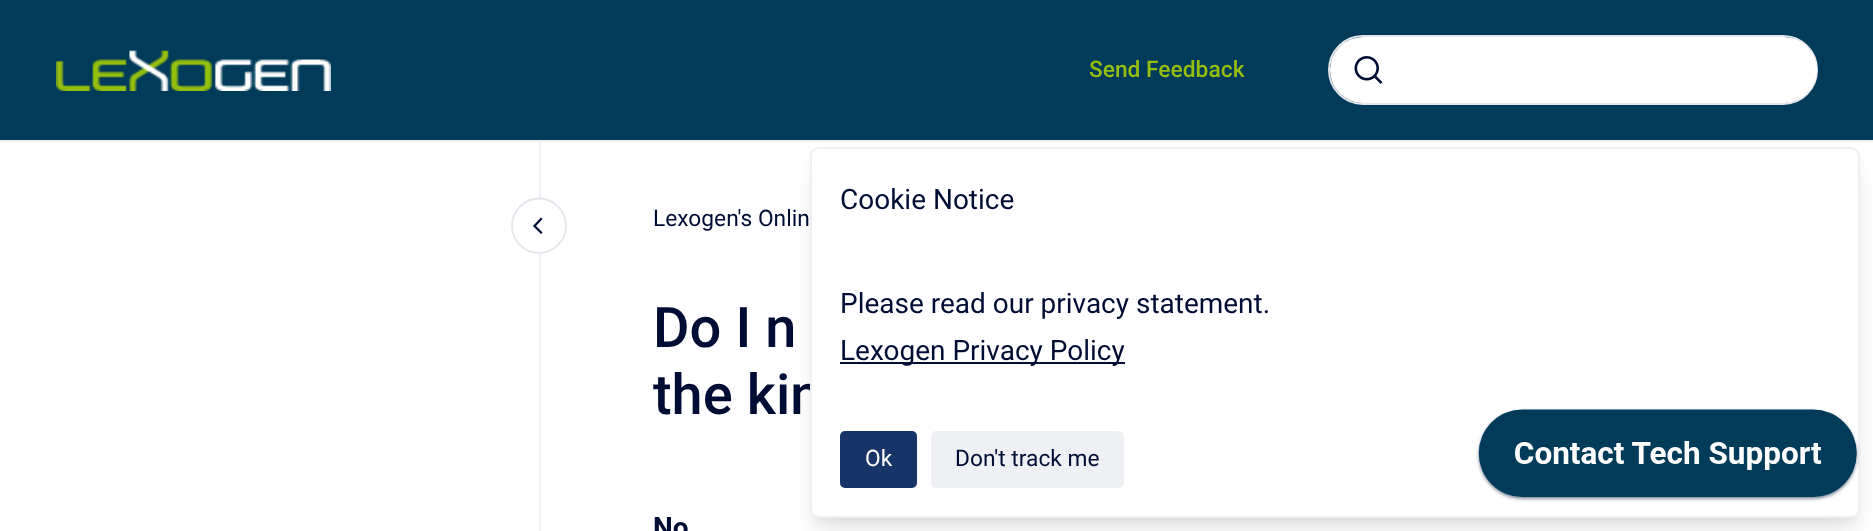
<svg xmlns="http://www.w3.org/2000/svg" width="1873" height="531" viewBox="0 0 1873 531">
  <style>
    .t1 { font: 500 22.75px Roboto; fill: #96be0e; }
    .t2 { font: 22.75px Roboto; fill: #000c34; }
    .t3 { font: 500 56px Roboto; fill: #000c34; }
    .t4 { font: bold 28px Roboto; fill: #000c34; }
    .t5 { font: 28px Roboto; fill: #000c34; }
    .t6 { font: 22.75px Roboto; fill: #fff; }
  </style>
  <rect width="100%" height="100%" fill="#fff"/>
  <rect x="0" y="0" width="1873" height="140" fill="#003c5a"/>
  <rect x="0" y="140" width="1873" height="2" fill="#eff0f4"/>
  <image x="56" y="50" width="275" height="41" href="images/1.png"/>
  <text x="1089" y="77" class="t1">Send Feedback</text>
  <rect x="1329" y="36" width="488" height="68" rx="34" fill="none" stroke="#e2e5eb" stroke-width="2"/>
  <rect x="1330" y="37" width="487" height="66" rx="33" fill="#fff"/>
  <image x="1354" y="56" width="29" height="28" href="images/2.png"/>
  <rect x="539" y="142" width="2" height="389" fill="#eff0f4"/>
  <path d="M539 254C524 254 511 241 511 226C511 210 524 198 539 198C554 198 567 210 567 226C567 241 554 254 539 254Z" fill="#fff"/>
  <path d="M539 253C524 253 512 240.5 512 226C512 211 524 198.5 539 198.5C554 198.5 566 211 566 226C566 240.5 554 253 539 253Z" fill="none" stroke="#e2e5eb" stroke-width="1.8"/>
  <path d="M541 232.5L534.5 226L541 219" fill="none" stroke="#000c34" stroke-width="2.2" stroke-linecap="square"/>
  <text x="653" y="226" class="t2">Lexogen's Onlin</text>
  <text x="653" y="347" class="t3">Do I n</text>
  <text x="653" y="414" class="t3">the kin</text>
  <text x="653" y="537" class="t4">No</text>
  <rect x="814" y="158" width="1043" height="364" rx="5" fill="#0000000d" filter="blur(5px)"/>
  <rect x="816" y="170" width="1039" height="360" rx="4" fill="#0000001a" filter="blur(13px)"/>
  <rect x="811" y="148" width="1048" height="369" rx="8" fill="#fff" stroke="#eff0f4" stroke-width="2"/>
  <text x="840" y="209" class="t5">Cookie Notice</text>
  <text x="840" y="313" class="t5">Please read our privacy statement.</text>
  <rect x="840" y="362" width="285" height="2" fill="#000c34"/>
  <text x="840" y="360" class="t5">Lexogen Privacy Policy</text>
  <rect x="840" y="431" width="77" height="57" rx="5" fill="#193468"/>
  <text x="865" y="466" class="t6">Ok</text>
  <rect x="931" y="431" width="193" height="57" rx="5" fill="#eff0f4"/>
  <text x="955" y="466" class="t2">Don't track me</text>
  <image x="1476" y="408" width="384" height="94" href="images/3.png"/>
</svg>
